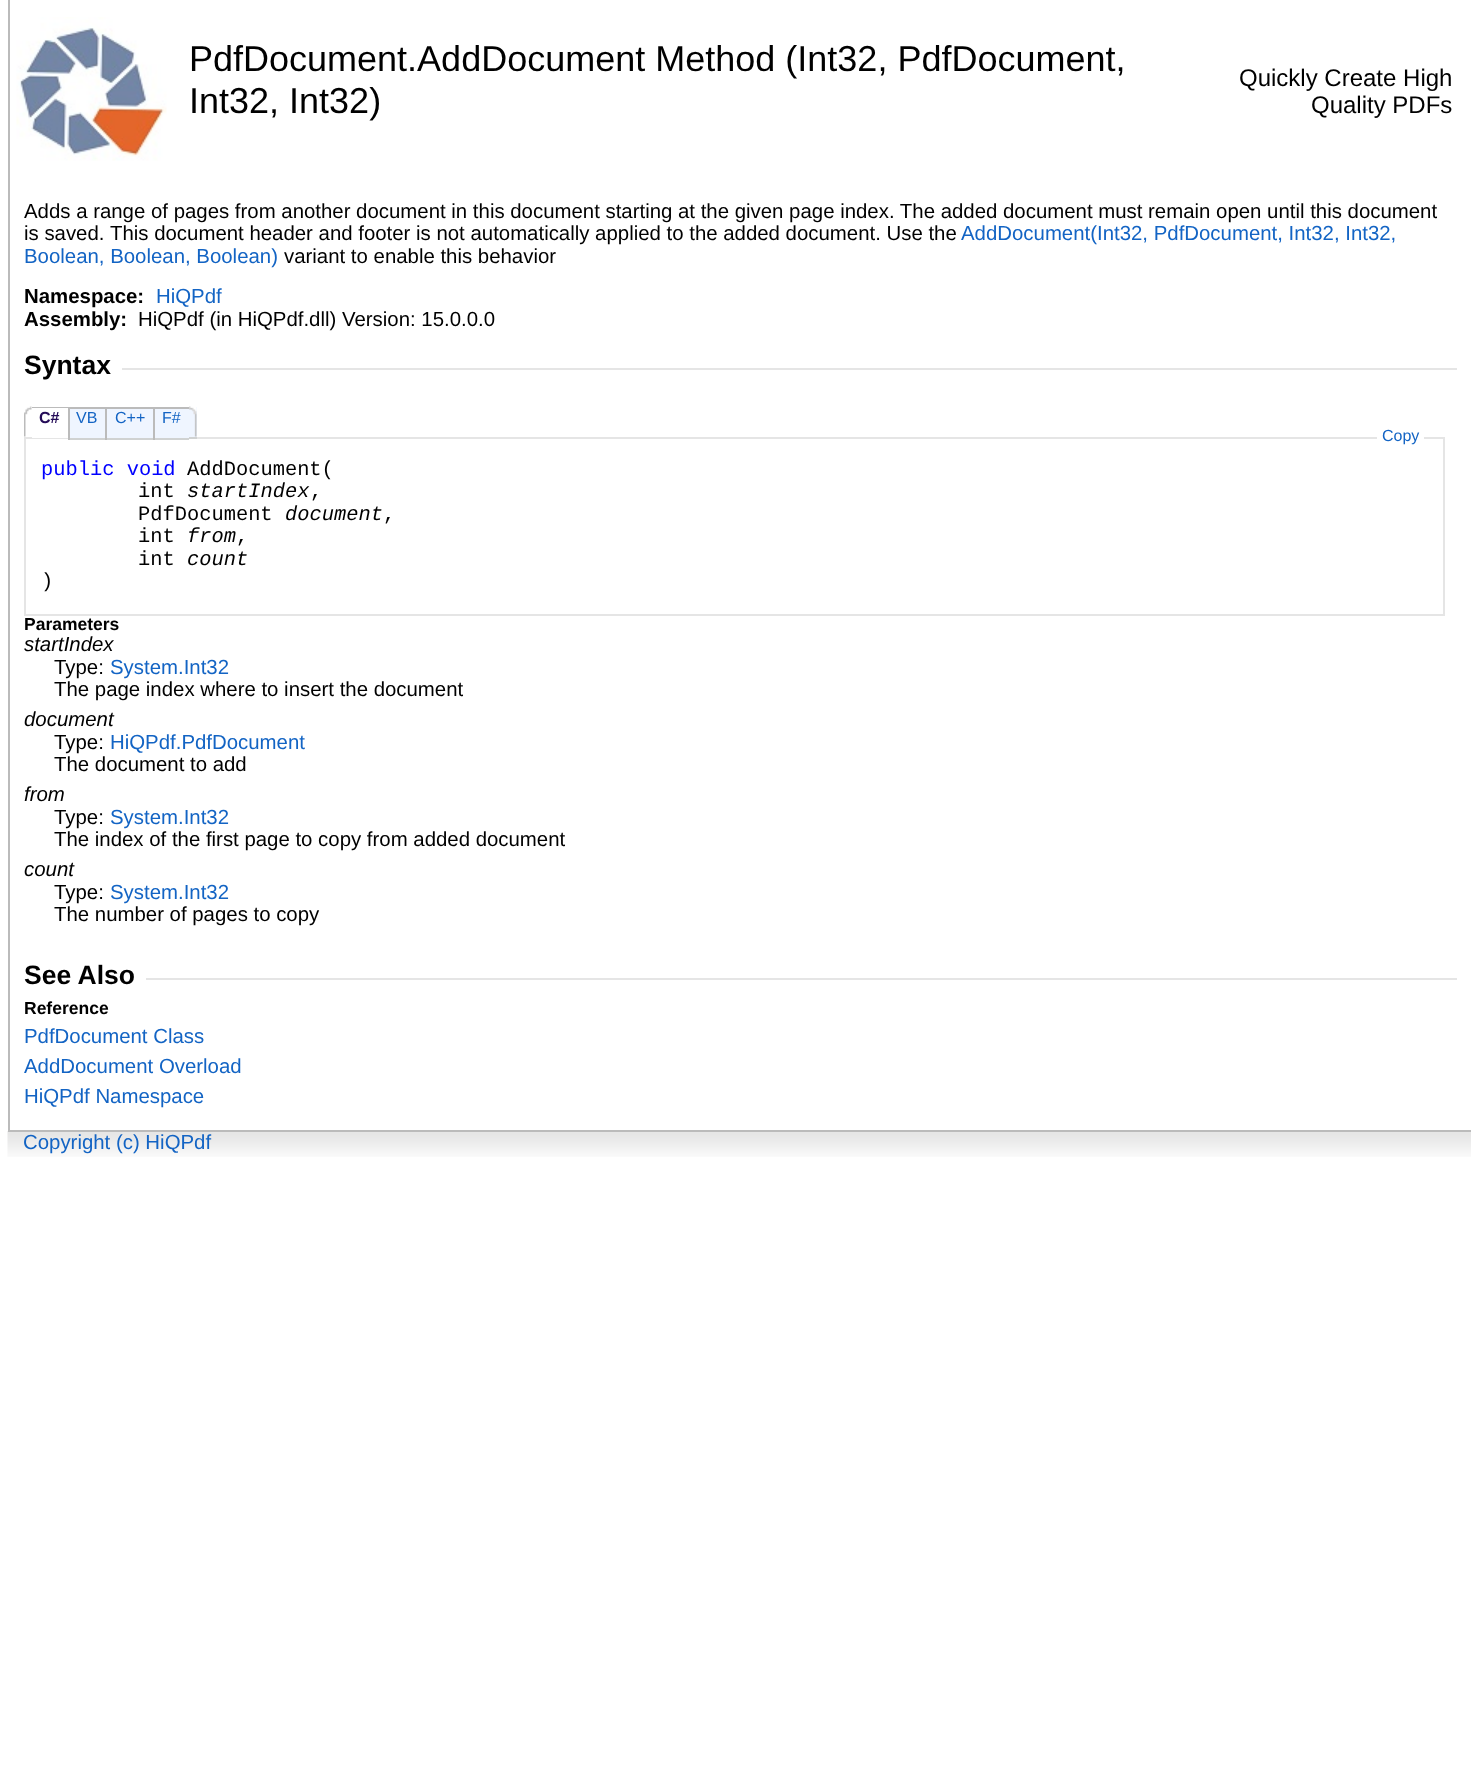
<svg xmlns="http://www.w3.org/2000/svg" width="1471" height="1781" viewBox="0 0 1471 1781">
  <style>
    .t1 { font: 36px Liberation Sans; fill: #000; }
    .t2 { font: 24px Liberation Sans; fill: #000; }
    .t3 { font: 20.4px Liberation Sans; fill: #000; }
    .t4 { font: 20.4px Liberation Sans; fill: #1364c4; }
    .t5 { font: bold 20.4px Liberation Sans; fill: #000; }
    .t6 { font: bold 26.5px Liberation Sans; fill: #000; }
    .t7 { font: bold 16px Liberation Sans; fill: #250c58; }
    .t8 { font: 16px Liberation Sans; fill: #1364c4; }
    .t9 { font: 20.4px Liberation Mono; fill: #00f; }
    .t10 { font: 20.4px Liberation Mono; fill: #000; }
    .t11 { font: italic 20.4px Liberation Mono; fill: #000; }
    .t12 { font: bold 17.5px Liberation Sans; fill: #000; }
    .t13 { font: italic 20.4px Liberation Sans; fill: #000; }
  </style>
  <rect width="100%" height="100%" fill="#fff"/>
  <rect x="8" y="0" width="2" height="1130" fill="#bbb"/>
  <image x="16" y="17" width="151" height="144" href="images/1.png"/>
  <text x="189" y="71" class="t1">PdfDocument.AddDocument Method (Int32, PdfDocument,</text>
  <text x="189" y="113" class="t1">Int32, Int32)</text>
  <text x="1239" y="86" class="t2">Quickly Create High</text>
  <text x="1311" y="113" class="t2">Quality PDFs</text>
  <text x="24" y="218" class="t3">Adds a range of pages from another document in this document starting at the given page index. The added document must remain open until this document</text>
  <text x="24" y="240" class="t3">is saved.</text>
  <text x="110" y="240" class="t3">This document header and footer is not automatically applied to the added document. Use the</text>
  <text x="961" y="240" class="t4">AddDocument(Int32, PdfDocument, Int32, Int32,</text>
  <text x="24" y="263" class="t4">Boolean, Boolean, Boolean)</text>
  <text x="284" y="263" class="t3">variant to enable this behavior</text>
  <text x="24" y="303" class="t5">Namespace:</text>
  <text x="156" y="303" class="t4">HiQPdf</text>
  <text x="24" y="326" class="t5">Assembly:</text>
  <text x="138" y="326" class="t3">HiQPdf (in HiQPdf.dll) Version: 15.0.0.0</text>
  <text x="24" y="374" class="t6">Syntax</text>
  <rect x="122" y="368" width="1335" height="2" fill="#e5e5e5"/>
  <image x="24" y="406" width="8" height="31" href="images/2.png"/>
  <rect x="26" y="437" width="1417" height="2" fill="#e5e5e5"/>
  <rect x="32" y="437" width="36" height="1" fill="#fff"/>
  <rect x="32" y="407" width="36" height="1" fill="#bbb"/>
  <text x="39" y="423" class="t7">C#</text>
  <rect x="70" y="409" width="35" height="29" fill="#eff5ff"/>
  <rect x="68" y="407" width="121" height="2" fill="#bbb"/>
  <rect x="68" y="438" width="121" height="2" fill="#d0d2d2"/>
  <rect x="68" y="407" width="2" height="33" fill="#bbb"/>
  <text x="76" y="423" class="t8">VB</text>
  <rect x="107" y="409" width="46" height="29" fill="#eff5ff"/>
  <rect x="105" y="407" width="2" height="33" fill="#bbb"/>
  <text x="115" y="423" class="t8">C++</text>
  <rect x="155" y="409" width="34" height="29" fill="#eff5ff"/>
  <rect x="153" y="407" width="2" height="33" fill="#bbb"/>
  <text x="162" y="423" class="t8">F#</text>
  <rect x="189" y="407" width="8" height="31" fill="#eff5ff"/>
  <image x="189" y="406" width="8" height="31" href="images/3.png"/>
  <rect x="189" y="437" width="8" height="2" fill="#d0d2d2"/>
  <rect x="1443" y="437" width="2" height="178" fill="#e5e5e5"/>
  <rect x="24" y="614" width="1421" height="2" fill="#e5e5e5"/>
  <rect x="24" y="437" width="2" height="178" fill="#e5e5e5"/>
  <rect x="1377" y="437" width="47" height="2" fill="#fff"/>
  <text x="1382" y="441" class="t8">Copy</text>
  <text x="41" y="475" class="t9">public void</text>
  <text x="187" y="475" class="t10">AddDocument(</text>
  <text x="138" y="497" class="t10">int</text>
  <text x="187" y="497" class="t11">startIndex</text>
  <text x="310" y="497" class="t10">,</text>
  <text x="138" y="520" class="t10">PdfDocument</text>
  <text x="285" y="520" class="t11">document</text>
  <text x="383" y="520" class="t10">,</text>
  <text x="138" y="542" class="t10">int</text>
  <text x="187" y="542" class="t11">from</text>
  <text x="236" y="542" class="t10">,</text>
  <text x="138" y="565" class="t10">int</text>
  <text x="187" y="565" class="t11">count</text>
  <text x="41" y="587" class="t10">)</text>
  <text x="24" y="630" class="t12">Parameters</text>
  <text x="24" y="651" class="t13">startIndex</text>
  <text x="54" y="674" class="t3">Type:</text>
  <text x="110" y="674" class="t4">System.Int32</text>
  <text x="54" y="696" class="t3">The page index where to insert the document</text>
  <text x="24" y="726" class="t13">document</text>
  <text x="54" y="749" class="t3">Type:</text>
  <text x="110" y="749" class="t4">HiQPdf.PdfDocument</text>
  <text x="54" y="771" class="t3">The document to add</text>
  <text x="24" y="801" class="t13">from</text>
  <text x="54" y="824" class="t3">Type:</text>
  <text x="110" y="824" class="t4">System.Int32</text>
  <text x="54" y="846" class="t3">The index of the first page to copy from added document</text>
  <text x="24" y="876" class="t13">count</text>
  <text x="54" y="899" class="t3">Type:</text>
  <text x="110" y="899" class="t4">System.Int32</text>
  <text x="54" y="921" class="t3">The number of pages to copy</text>
  <text x="24" y="984" class="t6">See Also</text>
  <rect x="146" y="978" width="1311" height="2" fill="#e5e5e5"/>
  <text x="24" y="1014" class="t12">Reference</text>
  <text x="24" y="1043" class="t4">PdfDocument Class</text>
  <text x="24" y="1073" class="t4">AddDocument Overload</text>
  <text x="24" y="1103" class="t4">HiQPdf Namespace</text>
  <image x="7" y="1131" width="1464" height="26" href="images/4.png"/>
  <rect x="8" y="1130" width="1463" height="2" fill="#bbb"/>
  <text x="23" y="1149" class="t4">Copyright (c) HiQPdf</text>
</svg>
